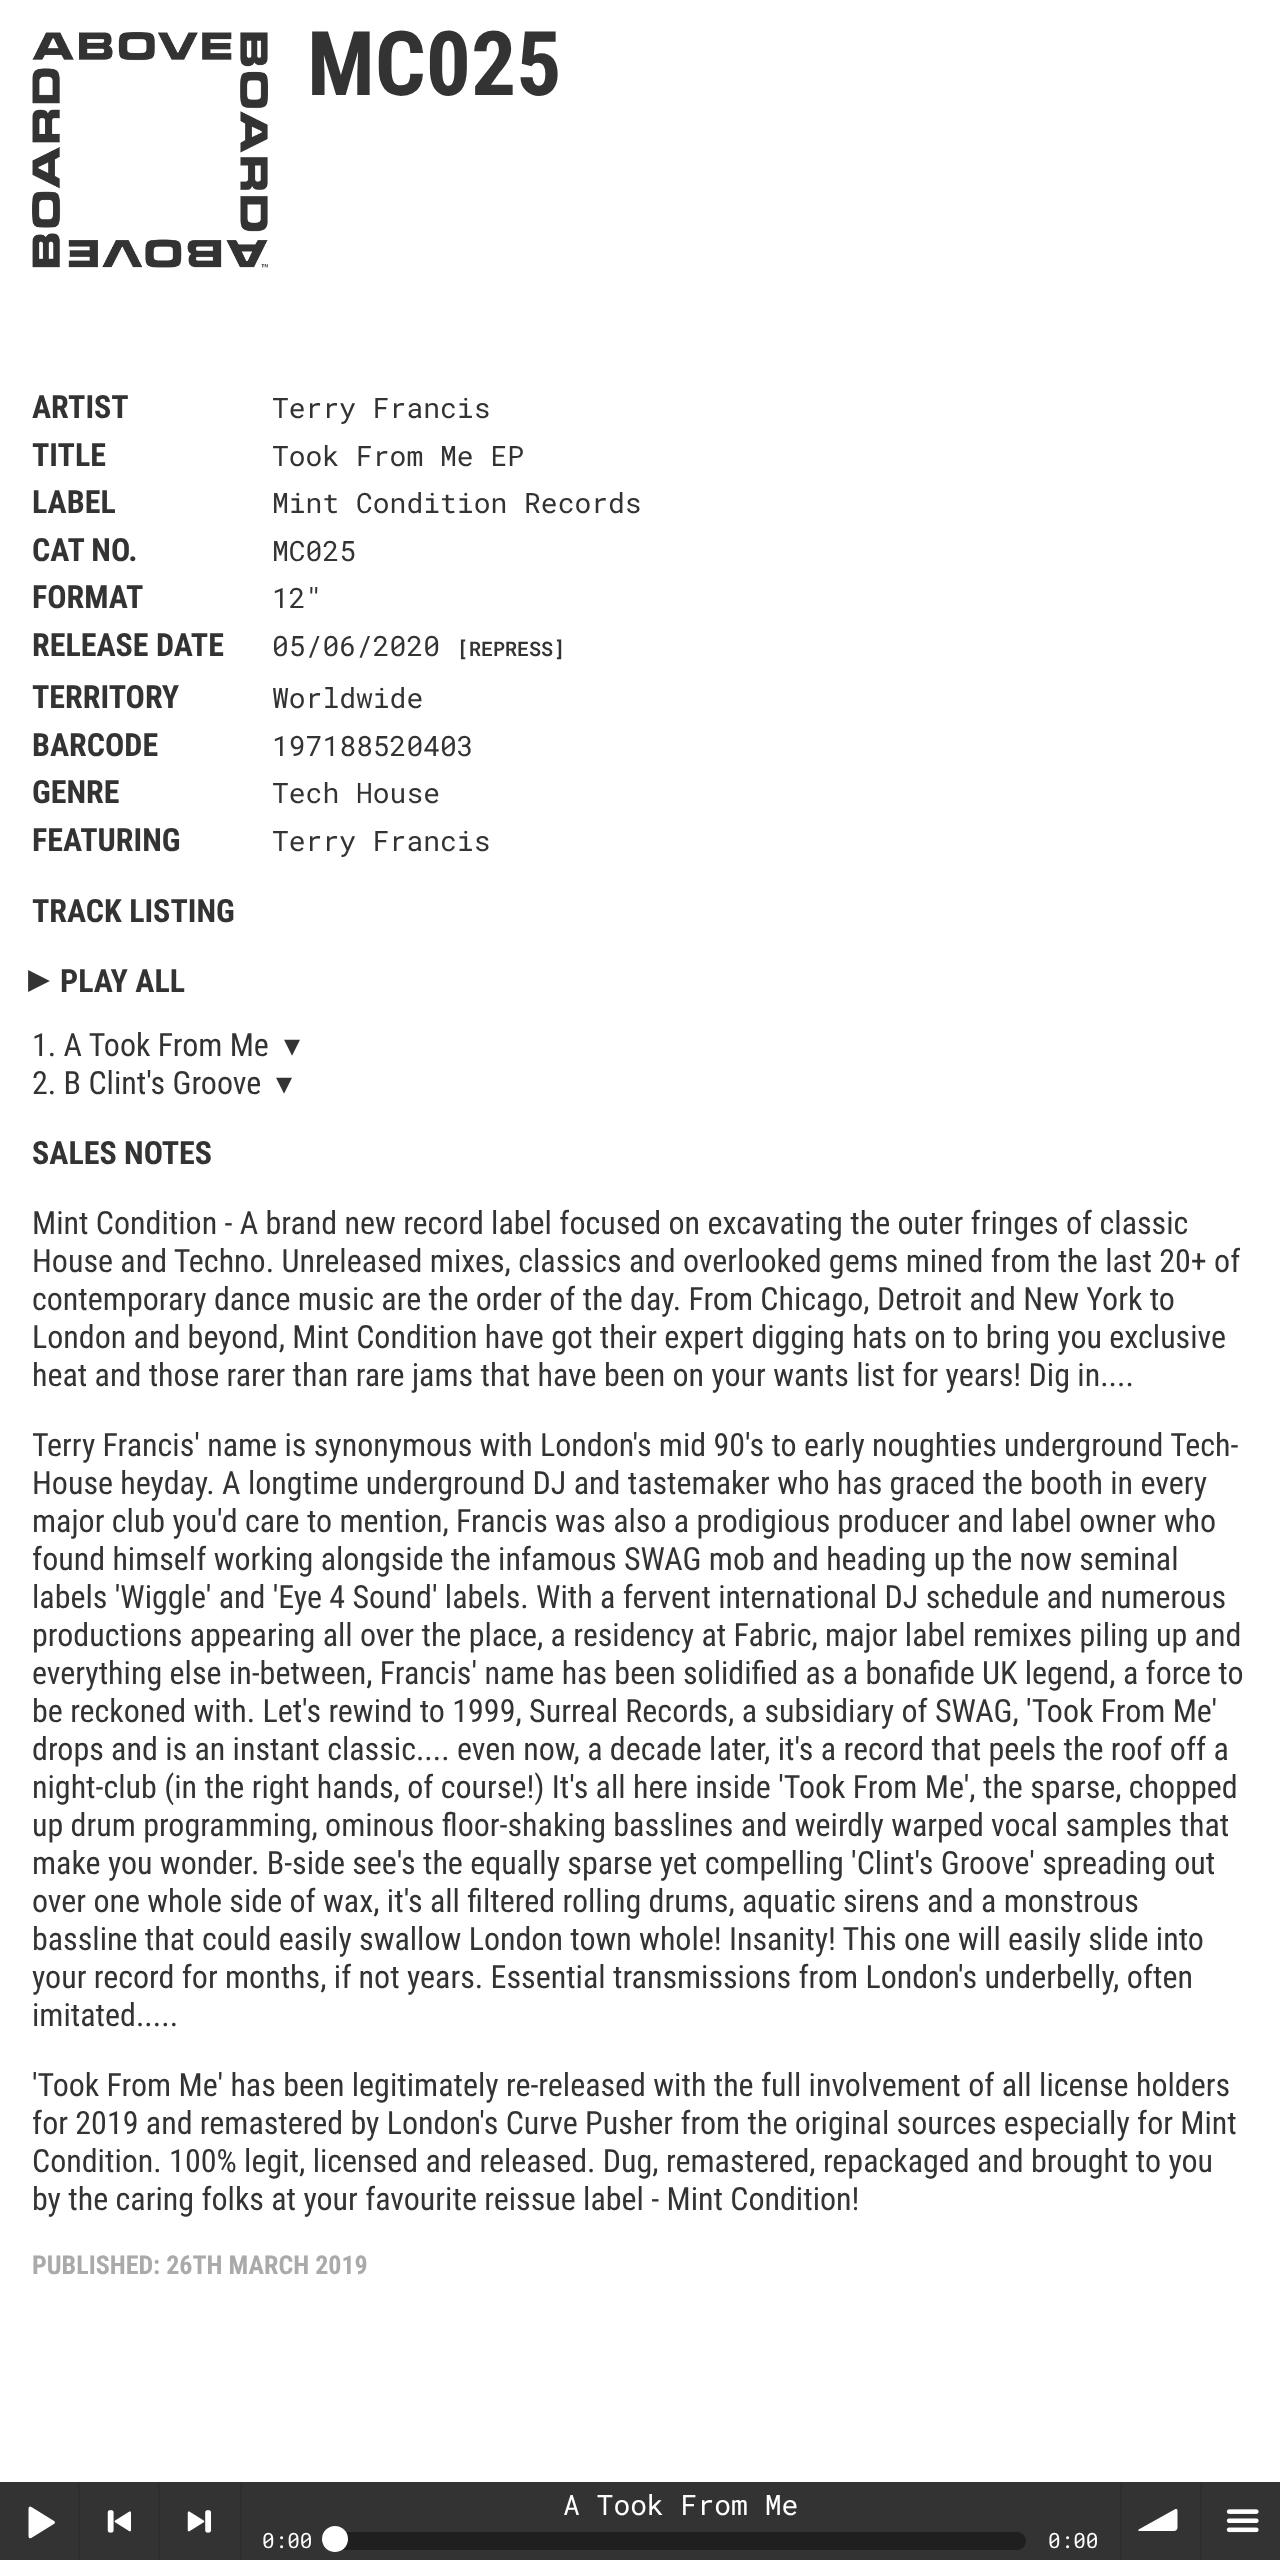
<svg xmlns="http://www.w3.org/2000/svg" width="1280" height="2560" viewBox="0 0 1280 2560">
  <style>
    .t1 { font: bold 89.5px Roboto Condensed; fill: #333; }
    .t2 { font: bold 32px Roboto Condensed; fill: #333; }
    .t3 { font: 28px Roboto Mono; fill: #333; }
    .t4 { font: 600 20px Roboto Mono; fill: #333; }
    .t5 { font: bold 40px DejaVu Sans; fill: #333; }
    .t6 { font: 32px Roboto Condensed; fill: #333; }
    .t7 { font: 32px DejaVu Sans; fill: #333; }
    .t8 { font: bold 26px Roboto Condensed; fill: #aaa; }
    .t9 { font: 28px Roboto Mono; fill: #fff; }
    .t10 { font: 21px Roboto Mono; fill: #fff; }
  </style>
  <rect width="100%" height="100%" fill="#fff"/>
  <image x="32" y="32" width="236" height="236" href="images/1.png"/>
  <text x="307" y="95" class="t1">MC025</text>
  <text x="32" y="418" class="t2">ARTIST</text>
  <text x="272" y="418" class="t3">Terry Francis</text>
  <text x="32" y="466" class="t2">TITLE</text>
  <text x="272" y="466" class="t3">Took From Me EP</text>
  <text x="32" y="513" class="t2">LABEL</text>
  <text x="272" y="513" class="t3">Mint Condition Records</text>
  <text x="32" y="561" class="t2">CAT NO.</text>
  <text x="272" y="561" class="t3">MC025</text>
  <text x="32" y="608" class="t2">FORMAT</text>
  <text x="272" y="608" class="t3">12"</text>
  <text x="32" y="656" class="t2">RELEASE DATE</text>
  <text x="272" y="656" class="t3">05/06/2020</text>
  <text x="457" y="656" class="t4">[REPRESS]</text>
  <text x="32" y="708" class="t2">TERRITORY</text>
  <text x="272" y="708" class="t3">Worldwide</text>
  <text x="32" y="756" class="t2">BARCODE</text>
  <text x="272" y="756" class="t3">197188520403</text>
  <text x="32" y="803" class="t2">GENRE</text>
  <text x="272" y="803" class="t3">Tech House</text>
  <text x="32" y="851" class="t2">FEATURING</text>
  <text x="272" y="851" class="t3">Terry Francis</text>
  <text x="32" y="922" class="t2">TRACK LISTING</text>
  <text x="28" y="992" class="t5">▸</text>
  <text x="60" y="992" class="t2">PLAY ALL</text>
  <text x="32" y="1056" class="t6">1. A Took From Me</text>
  <text x="284" y="1056" class="t7">▾</text>
  <text x="32" y="1094" class="t6">2. B Clint's Groove</text>
  <text x="276" y="1094" class="t7">▾</text>
  <text x="32" y="1164" class="t2">SALES NOTES</text>
  <text x="32" y="1234" class="t6">Mint Condition - A brand new record label focused on excavating the outer fringes of classic</text>
  <text x="32" y="1272" class="t6">House and Techno. Unreleased mixes, classics and overlooked gems mined from the last 20+ of</text>
  <text x="32" y="1310" class="t6">contemporary dance music are the order of the day. From Chicago, Detroit and New York to</text>
  <text x="32" y="1348" class="t6">London and beyond, Mint Condition have got their expert digging hats on to bring you exclusive</text>
  <text x="32" y="1386" class="t6">heat and those rarer than rare jams that have been on your wants list for years! Dig in....</text>
  <text x="32" y="1456" class="t6">Terry Francis' name is synonymous with London's mid 90's to early noughties underground Tech-</text>
  <text x="32" y="1494" class="t6">House heyday. A longtime underground DJ and tastemaker who has graced the booth in every</text>
  <text x="32" y="1532" class="t6">major club you'd care to mention, Francis was also a prodigious producer and label owner who</text>
  <text x="32" y="1570" class="t6">found himself working alongside the infamous SWAG mob and heading up the now seminal</text>
  <text x="32" y="1608" class="t6">labels 'Wiggle' and 'Eye 4 Sound' labels. With a fervent international DJ schedule and numerous</text>
  <text x="32" y="1646" class="t6">productions appearing all over the place, a residency at Fabric, major label remixes piling up and</text>
  <text x="32" y="1684" class="t6">everything else in-between, Francis' name has been solidified as a bonafide UK legend, a force to</text>
  <text x="32" y="1722" class="t6">be reckoned with. Let's rewind to 1999, Surreal Records, a subsidiary of SWAG, 'Took From Me'</text>
  <text x="32" y="1760" class="t6">drops and is an instant classic.... even now, a decade later, it's a record that peels the roof off a</text>
  <text x="32" y="1798" class="t6">night-club (in the right hands, of course!) It's all here inside 'Took From Me', the sparse, chopped</text>
  <text x="32" y="1836" class="t6">up drum programming, ominous floor-shaking basslines and weirdly warped vocal samples that</text>
  <text x="32" y="1874" class="t6">make you wonder. B-side see's the equally sparse yet compelling 'Clint's Groove' spreading out</text>
  <text x="32" y="1912" class="t6">over one whole side of wax, it's all filtered rolling drums, aquatic sirens and a monstrous</text>
  <text x="32" y="1950" class="t6">bassline that could easily swallow London town whole! Insanity! This one will easily slide into</text>
  <text x="32" y="1988" class="t6">your record for months, if not years. Essential transmissions from London's underbelly, often</text>
  <text x="32" y="2026" class="t6">imitated.....</text>
  <text x="32" y="2096" class="t6">'Took From Me' has been legitimately re-released with the full involvement of all license holders</text>
  <text x="32" y="2134" class="t6">for 2019 and remastered by London's Curve Pusher from the original sources especially for Mint</text>
  <text x="32" y="2172" class="t6">Condition. 100% legit, licensed and released. Dug, remastered, repackaged and brought to you</text>
  <text x="32" y="2210" class="t6">by the caring folks at your favourite reissue label - Mint Condition!</text>
  <text x="32" y="2274" class="t8">PUBLISHED: 26TH MARCH 2019</text>
  <rect x="0" y="2482" width="1280" height="78" fill="#333"/>
  <rect x="78" y="2482" width="2" height="78" fill="#2e2e2e"/>
  <image x="28" y="2506" width="27" height="33" href="images/2.png"/>
  <rect x="158" y="2482" width="2" height="78" fill="#2e2e2e"/>
  <image x="107" y="2510" width="25" height="23" href="images/3.png"/>
  <rect x="240" y="2482" width="2" height="78" fill="#2e2e2e"/>
  <image x="187" y="2510" width="25" height="23" href="images/4.png"/>
  <rect x="1120" y="2482" width="2" height="78" fill="#2e2e2e"/>
  <text x="563" y="2515" class="t9">A Took From Me</text>
  <text x="262" y="2548" class="t10">0:00</text>
  <rect x="334" y="2532" width="692" height="18" rx="9" fill="#1f1f1f"/>
  <circle cx="335" cy="2539" r="13" fill="#fff"/>
  <text x="1048" y="2548" class="t10">0:00</text>
  <rect x="1200" y="2482" width="2" height="78" fill="#2e2e2e"/>
  <path d="M1177.5 2527.5C1177.5 2529.5 1176 2531 1174 2531H1140C1138 2531 1137.5 2530 1139.5 2529L1174.5 2509.5C1176.5 2508.5 1177.5 2509 1177.5 2511Z" fill="#fff"/>
  <image x="1226" y="2509" width="33" height="24" href="images/5.png"/>
</svg>
